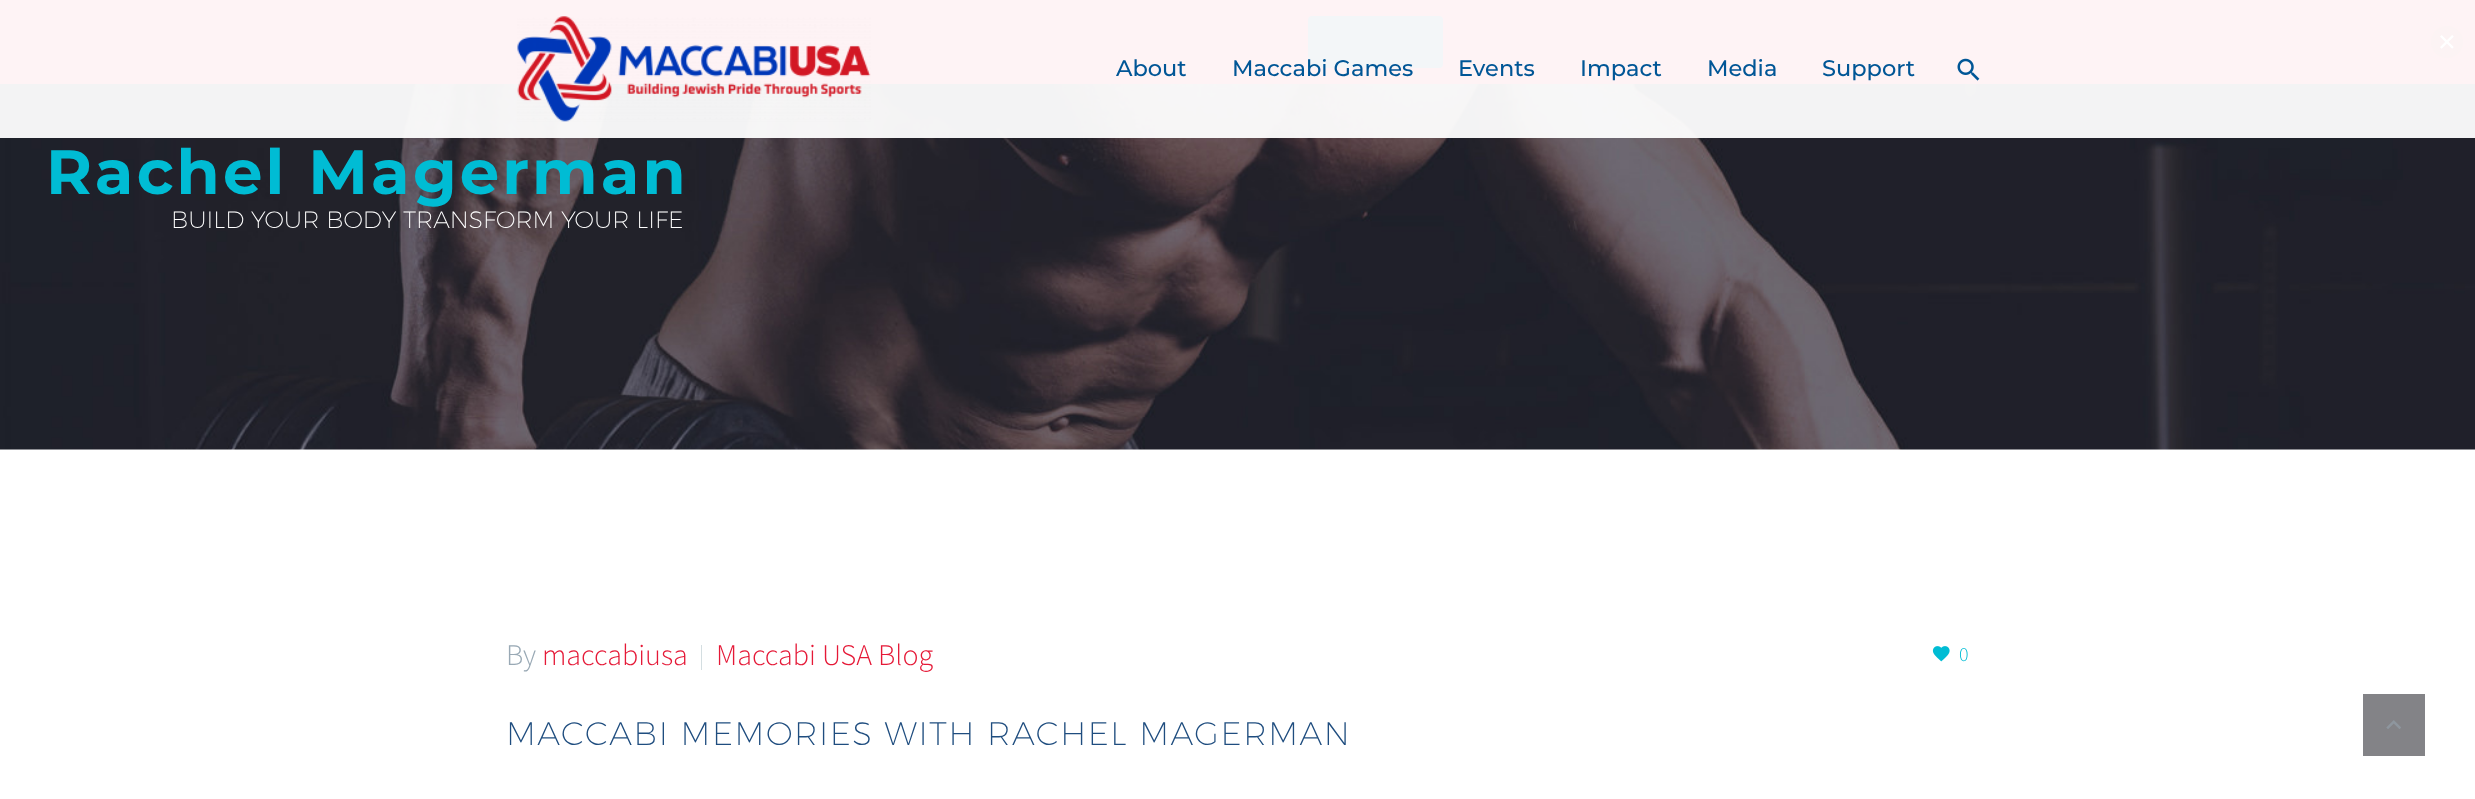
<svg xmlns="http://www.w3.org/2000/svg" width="2475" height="799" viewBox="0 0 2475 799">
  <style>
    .t1 { font: 500 22.5px Montserrat; fill: #005696; }
    .t2 { font: bold 62.5px Montserrat; letter-spacing: 3.1px; fill: #00bcd4; }
    .t3 { font: 200 23.75px Montserrat; fill: #fff; }
    .t4 { font: 300 30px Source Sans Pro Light; fill: #99a9b5; }
    .t5 { font: 300 30px Source Sans Pro Light; fill: #e51937; }
    .t6 { font: 300 20px Source Sans Pro Light; fill: #00bcd4; }
    .t7 { font: 200 32.5px Montserrat; letter-spacing: 1.6px; fill: #1f4d7f; }
  </style>
  <rect width="100%" height="100%" fill="#fff"/>
  <rect x="0" y="0" width="2475" height="84" fill="#e51937"/>
  <rect x="1308" y="16" width="135" height="52" rx="4" fill="#1f4d7f"/>
  <circle cx="2447" cy="42" r="16" fill="#bc152d"/>
  <image x="2440" y="35" width="14" height="14" href="images/1.png"/>
  <image x="0" y="84" width="2475" height="366" href="images/4.png"/>
  <rect x="0" y="0" width="2475" height="138" fill="#fffffff2"/>
  <image x="517" y="16" width="354" height="106" href="images/2.png"/>
  <text x="1116" y="76" class="t1">About</text>
  <text x="1232" y="76" class="t1">Maccabi Games</text>
  <text x="1458" y="76" class="t1">Events</text>
  <text x="1580" y="76" class="t1">Impact</text>
  <text x="1707" y="76" class="t1">Media</text>
  <text x="1822" y="76" class="t1">Support</text>
  <image x="1957" y="58" width="23" height="23" href="images/3.png"/>
  <text x="46" y="194" class="t2">Rachel Magerman</text>
  <text x="171" y="228" class="t3">BUILD YOUR BODY TRANSFORM YOUR LIFE</text>
  <text x="506" y="665" class="t4">By</text>
  <text x="542" y="665" class="t5">maccabiusa</text>
  <rect x="701" y="645" width="1" height="25" fill="#d4dee1"/>
  <text x="716" y="665" class="t5">Maccabi USA Blog</text>
  <image x="1932" y="646" width="18" height="16" href="images/5.png"/>
  <text x="1959" y="661" class="t6">0</text>
  <text x="506" y="745" class="t7">MACCABI MEMORIES WITH RACHEL MAGERMAN</text>
  <rect x="2363" y="694" width="62" height="62" fill="#838387"/>
  <image x="2386" y="720" width="15" height="9" href="images/6.png"/>
</svg>
